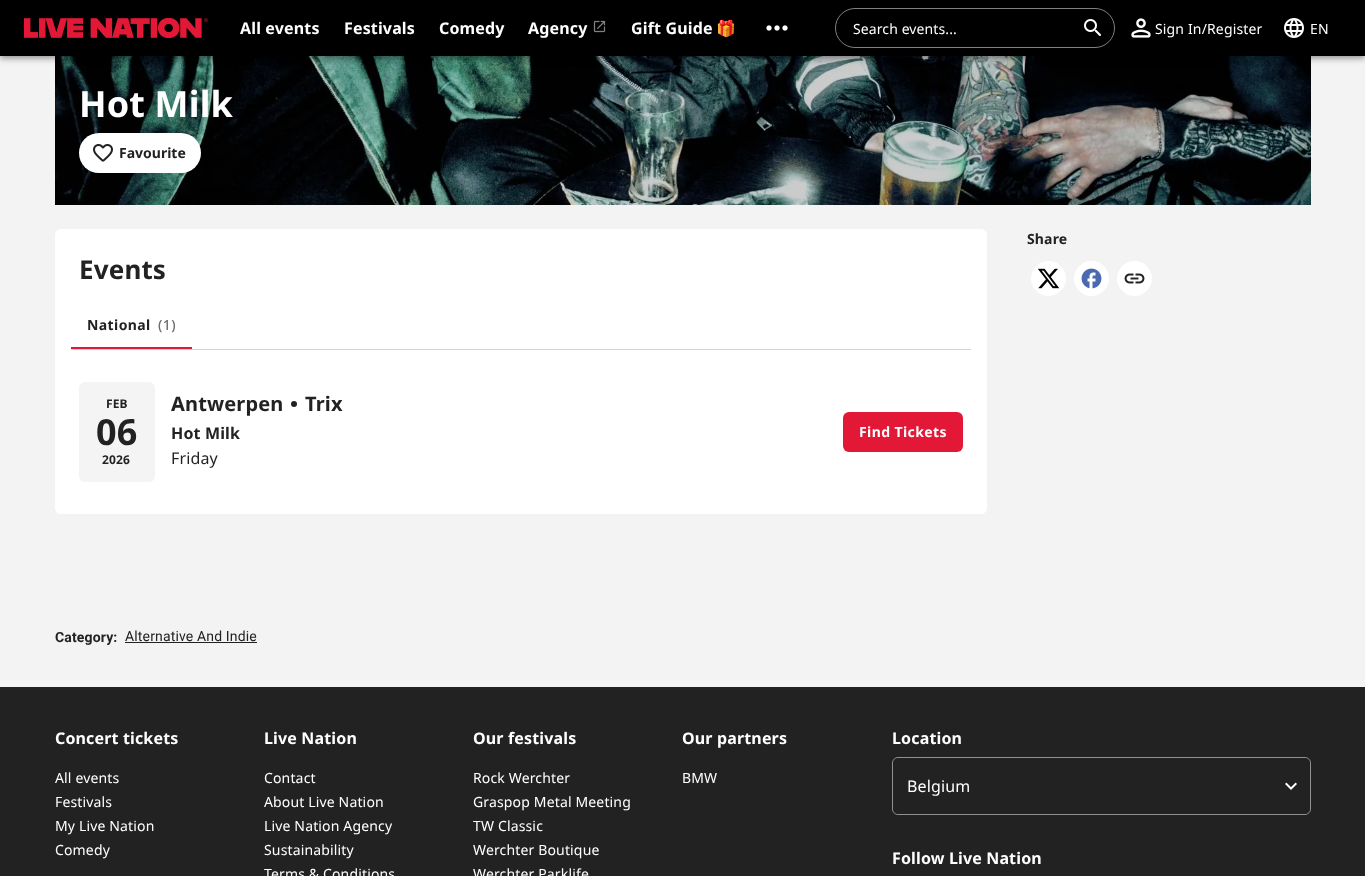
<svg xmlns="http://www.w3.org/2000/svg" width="1365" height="876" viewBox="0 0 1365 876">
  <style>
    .t1 { font: bold 16px Noto Sans; letter-spacing: 0.15px; fill: #fff; }
    .t2 { font: bold 16px Noto Color Emoji; letter-spacing: 0.15px; fill: #fff; }
    .t3 { font: 14px Noto Sans; letter-spacing: 0.1px; fill: #fff; }
    .t4 { font: 14px Noto Sans; letter-spacing: 0.15px; fill: #fff; }
    .t5 { font: bold 36px Noto Sans; letter-spacing: 0.15px; fill: #fff; }
    .t6 { font: bold 14px Noto Sans; fill: #222; }
    .t7 { font: bold 14px Noto Sans; letter-spacing: 0.15px; fill: #222; }
    .t8 { font: bold 26px Noto Sans; letter-spacing: 0.15px; fill: #222; }
    .t9 { font: bold 14px Noto Sans; letter-spacing: 0.4px; fill: #222; }
    .t10 { font: 500 14px Noto Sans; letter-spacing: 0.4px; fill: #6e6e6e; }
    .t11 { font: bold 12px Noto Sans; letter-spacing: 0.15px; fill: #222; }
    .t12 { font: bold 36px Noto Sans; letter-spacing: 0.15px; fill: #222; }
    .t13 { font: bold 20px Noto Sans; letter-spacing: 0.15px; fill: #222; }
    .t14 { font: bold 16px Noto Sans; letter-spacing: 0.15px; fill: #222; }
    .t15 { font: 16px Noto Sans; letter-spacing: 0.15px; fill: #222; }
    .t16 { font: bold 14px Noto Sans; letter-spacing: 0.4px; fill: #fff; }
    .t17 { font: bold 14px Roboto; letter-spacing: 0.15px; fill: #222; }
    .t18 { font: 14px Roboto; letter-spacing: 0.15px; fill: #222; }
    .t19 { font: 16px Noto Sans; letter-spacing: 0.15px; fill: #fff; }
  </style>
  <rect width="100%" height="100%" fill="#f3f3f3"/>
  <image x="55" y="56" width="1256" height="149" href="images/7.png"/>
  <rect x="0" y="1" width="1365" height="56" fill="#0000001f" filter="blur(5px)"/>
  <rect x="0" y="4" width="1365" height="56" fill="#00000024" filter="blur(2.5px)"/>
  <rect x="1" y="3" width="1363" height="54" fill="#00000033" filter="blur(2px)"/>
  <rect x="0" y="0" width="1365" height="56" fill="#000"/>
  <image x="24" y="17" width="184" height="22" href="images/1.png"/>
  <text x="240" y="34" class="t1">All events</text>
  <text x="344" y="34" class="t1">Festivals</text>
  <text x="439" y="34" class="t1">Comedy</text>
  <text x="528" y="34" class="t1">Agency</text>
  <image x="593" y="20" width="13" height="13" href="images/2.png"/>
  <text x="631" y="34" class="t1">Gift Guide</text>
  <text x="716" y="34" class="t2">🎁</text>
  <image x="766" y="25" width="22" height="6" href="images/3.png"/>
  <rect x="835.5" y="8.5" width="279" height="39" rx="19.5" fill="none" stroke="#808080"/>
  <text x="853" y="34" class="t3">Search events...</text>
  <image x="1084" y="19" width="17" height="17" href="images/4.png"/>
  <image x="1131" y="18" width="20" height="20" href="images/5.png"/>
  <text x="1155" y="34" class="t4">Sign In/Register</text>
  <image x="1284" y="18" width="20" height="20" href="images/6.png"/>
  <text x="1310" y="34" class="t3">EN</text>
  <text x="79" y="117" class="t5">Hot Milk</text>
  <rect x="79" y="133" width="122" height="40" rx="20" fill="#fff"/>
  <image x="93" y="144" width="20" height="18" href="images/8.png"/>
  <text x="119" y="158" class="t6">Favourite</text>
  <text x="1027" y="244" class="t7">Share</text>
  <circle cx="1048.5" cy="278.5" r="17.5" fill="#fff"/>
  <image x="1038" y="268" width="22" height="21" href="images/9.png"/>
  <circle cx="1091.5" cy="278.5" r="17.5" fill="#fff"/>
  <image x="1081" y="268" width="21" height="21" href="images/10.png"/>
  <circle cx="1134.5" cy="278.5" r="17.5" fill="#fff"/>
  <image x="1124" y="273" width="21" height="11" href="images/11.png"/>
  <rect x="55" y="229" width="932" height="285" rx="6" fill="#fff"/>
  <text x="79" y="279" class="t8">Events</text>
  <rect x="71" y="349" width="900" height="1" fill="#d3d3d3"/>
  <text x="87" y="330" class="t9">National</text>
  <text x="158" y="330" class="t10">(1)</text>
  <rect x="71" y="347" width="121" height="2" fill="#e21836"/>
  <rect x="55" y="350" width="932" height="164" rx="6" fill="#fff"/>
  <rect x="79" y="382" width="76" height="100" rx="6" fill="#f4f4f4"/>
  <text x="106" y="408" class="t11">FEB</text>
  <text x="96" y="445" class="t12">06</text>
  <text x="102" y="464" class="t11">2026</text>
  <text x="171" y="411" class="t13">Antwerpen</text>
  <circle cx="294" cy="404" r="3" fill="#222"/>
  <text x="305" y="411" class="t13">Trix</text>
  <text x="171" y="439" class="t14">Hot Milk</text>
  <text x="171" y="464" class="t15">Friday</text>
  <rect x="843" y="412" width="120" height="40" rx="6" fill="#e21836"/>
  <text x="859" y="437" class="t16">Find Tickets</text>
  <text x="55" y="642" class="t17">Category:</text>
  <text x="125" y="641" class="t18">Alternative And Indie</text>
  <rect x="125" y="642" width="132" height="1" fill="#222"/>
  <rect x="0" y="687" width="1365" height="189" fill="#222"/>
  <text x="55" y="744" class="t1">Concert tickets</text>
  <text x="55" y="783" class="t4">All events</text>
  <text x="55" y="807" class="t4">Festivals</text>
  <text x="55" y="831" class="t4">My Live Nation</text>
  <text x="55" y="855" class="t4">Comedy</text>
  <text x="264" y="744" class="t1">Live Nation</text>
  <text x="264" y="783" class="t4">Contact</text>
  <text x="264" y="807" class="t4">About Live Nation</text>
  <text x="264" y="831" class="t4">Live Nation Agency</text>
  <text x="264" y="855" class="t4">Sustainability</text>
  <text x="264" y="879" class="t4">Terms &amp; Conditions</text>
  <text x="473" y="744" class="t1">Our festivals</text>
  <text x="473" y="783" class="t4">Rock Werchter</text>
  <text x="473" y="807" class="t4">Graspop Metal Meeting</text>
  <text x="473" y="831" class="t4">TW Classic</text>
  <text x="473" y="855" class="t4">Werchter Boutique</text>
  <text x="473" y="879" class="t4">Werchter Parklife</text>
  <text x="682" y="744" class="t1">Our partners</text>
  <text x="682" y="783" class="t4">BMW</text>
  <text x="892" y="744" class="t1">Location</text>
  <rect x="892.5" y="757.5" width="418" height="57" rx="5.5" fill="none" stroke="#919191"/>
  <rect x="893" y="758" width="417" height="56" rx="6" fill="#222"/>
  <text x="907" y="792" class="t19">Belgium</text>
  <image x="1285" y="782" width="12" height="8" href="images/12.png"/>
  <text x="892" y="864" class="t1">Follow Live Nation</text>
</svg>
